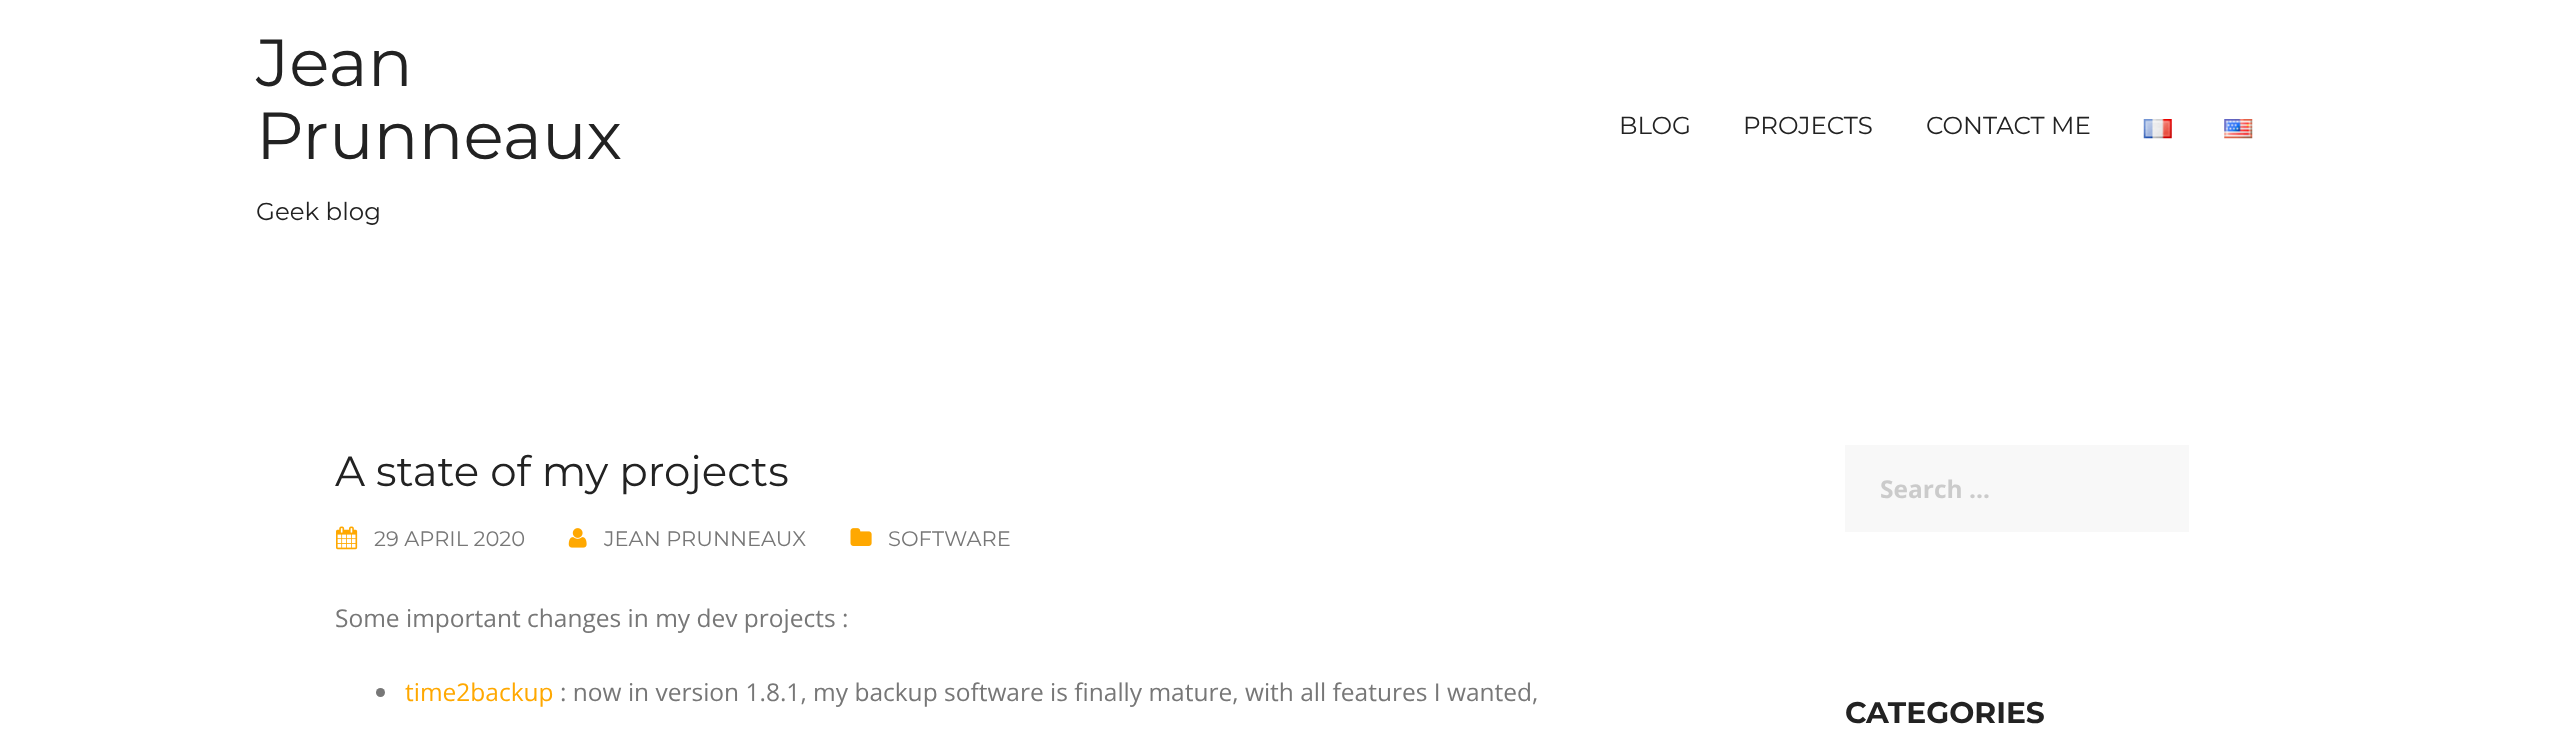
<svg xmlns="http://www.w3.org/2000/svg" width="2559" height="729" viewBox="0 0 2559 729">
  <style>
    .t1 { font: 66.5px Montserrat; fill: #222; }
    .t2 { font: 24.5px Montserrat; fill: #222; }
    .t3 { font: 42px Montserrat; fill: #222; }
    .t4 { font: 21px Montserrat; fill: #777; }
    .t5 { font: 24.5px Open Sans; fill: #777; }
    .t6 { font: 24.5px Open Sans; fill: #ffa800; }
    .t7 { font: bold 24.5px Open Sans; fill: #cbcbcb; }
    .t8 { font: bold 29.75px Montserrat; fill: #222; }
  </style>
  <rect width="100%" height="100%" fill="#fff"/>
  <text x="256" y="86" class="t1">Jean</text>
  <text x="256" y="159" class="t1">Prunneaux</text>
  <text x="256" y="220" class="t2">Geek blog</text>
  <text x="1619" y="134" class="t2">BLOG</text>
  <text x="1743" y="134" class="t2">PROJECTS</text>
  <text x="1926" y="134" class="t2">CONTACT ME</text>
  <image x="2143" y="119" width="29" height="20" href="images/1.png"/>
  <image x="2224" y="119" width="29" height="20" href="images/2.png"/>
  <text x="335" y="486" class="t3">A state of my projects</text>
  <image x="336" y="526" width="22" height="24" href="images/3.png"/>
  <text x="374" y="546" class="t4">29 APRIL 2020</text>
  <image x="568" y="528" width="19" height="20" href="images/4.png"/>
  <text x="604" y="546" class="t4">JEAN PRUNNEAUX</text>
  <image x="850" y="528" width="22" height="18" href="images/5.png"/>
  <text x="888" y="546" class="t4">SOFTWARE</text>
  <text x="335" y="627" class="t5">Some important changes in my dev projects :</text>
  <circle cx="380.5" cy="692.5" r="4.5" fill="#777"/>
  <text x="405" y="701" class="t6">time2backup</text>
  <text x="560" y="701" class="t5">: now in version 1.8.1, my backup software is finally mature, with all features I wanted,</text>
  <rect x="1845" y="445" width="344" height="87" fill="#f8f8f8"/>
  <text x="1880" y="498" class="t7">Search …</text>
  <text x="1845" y="723" class="t8">CATEGORIES</text>
</svg>
